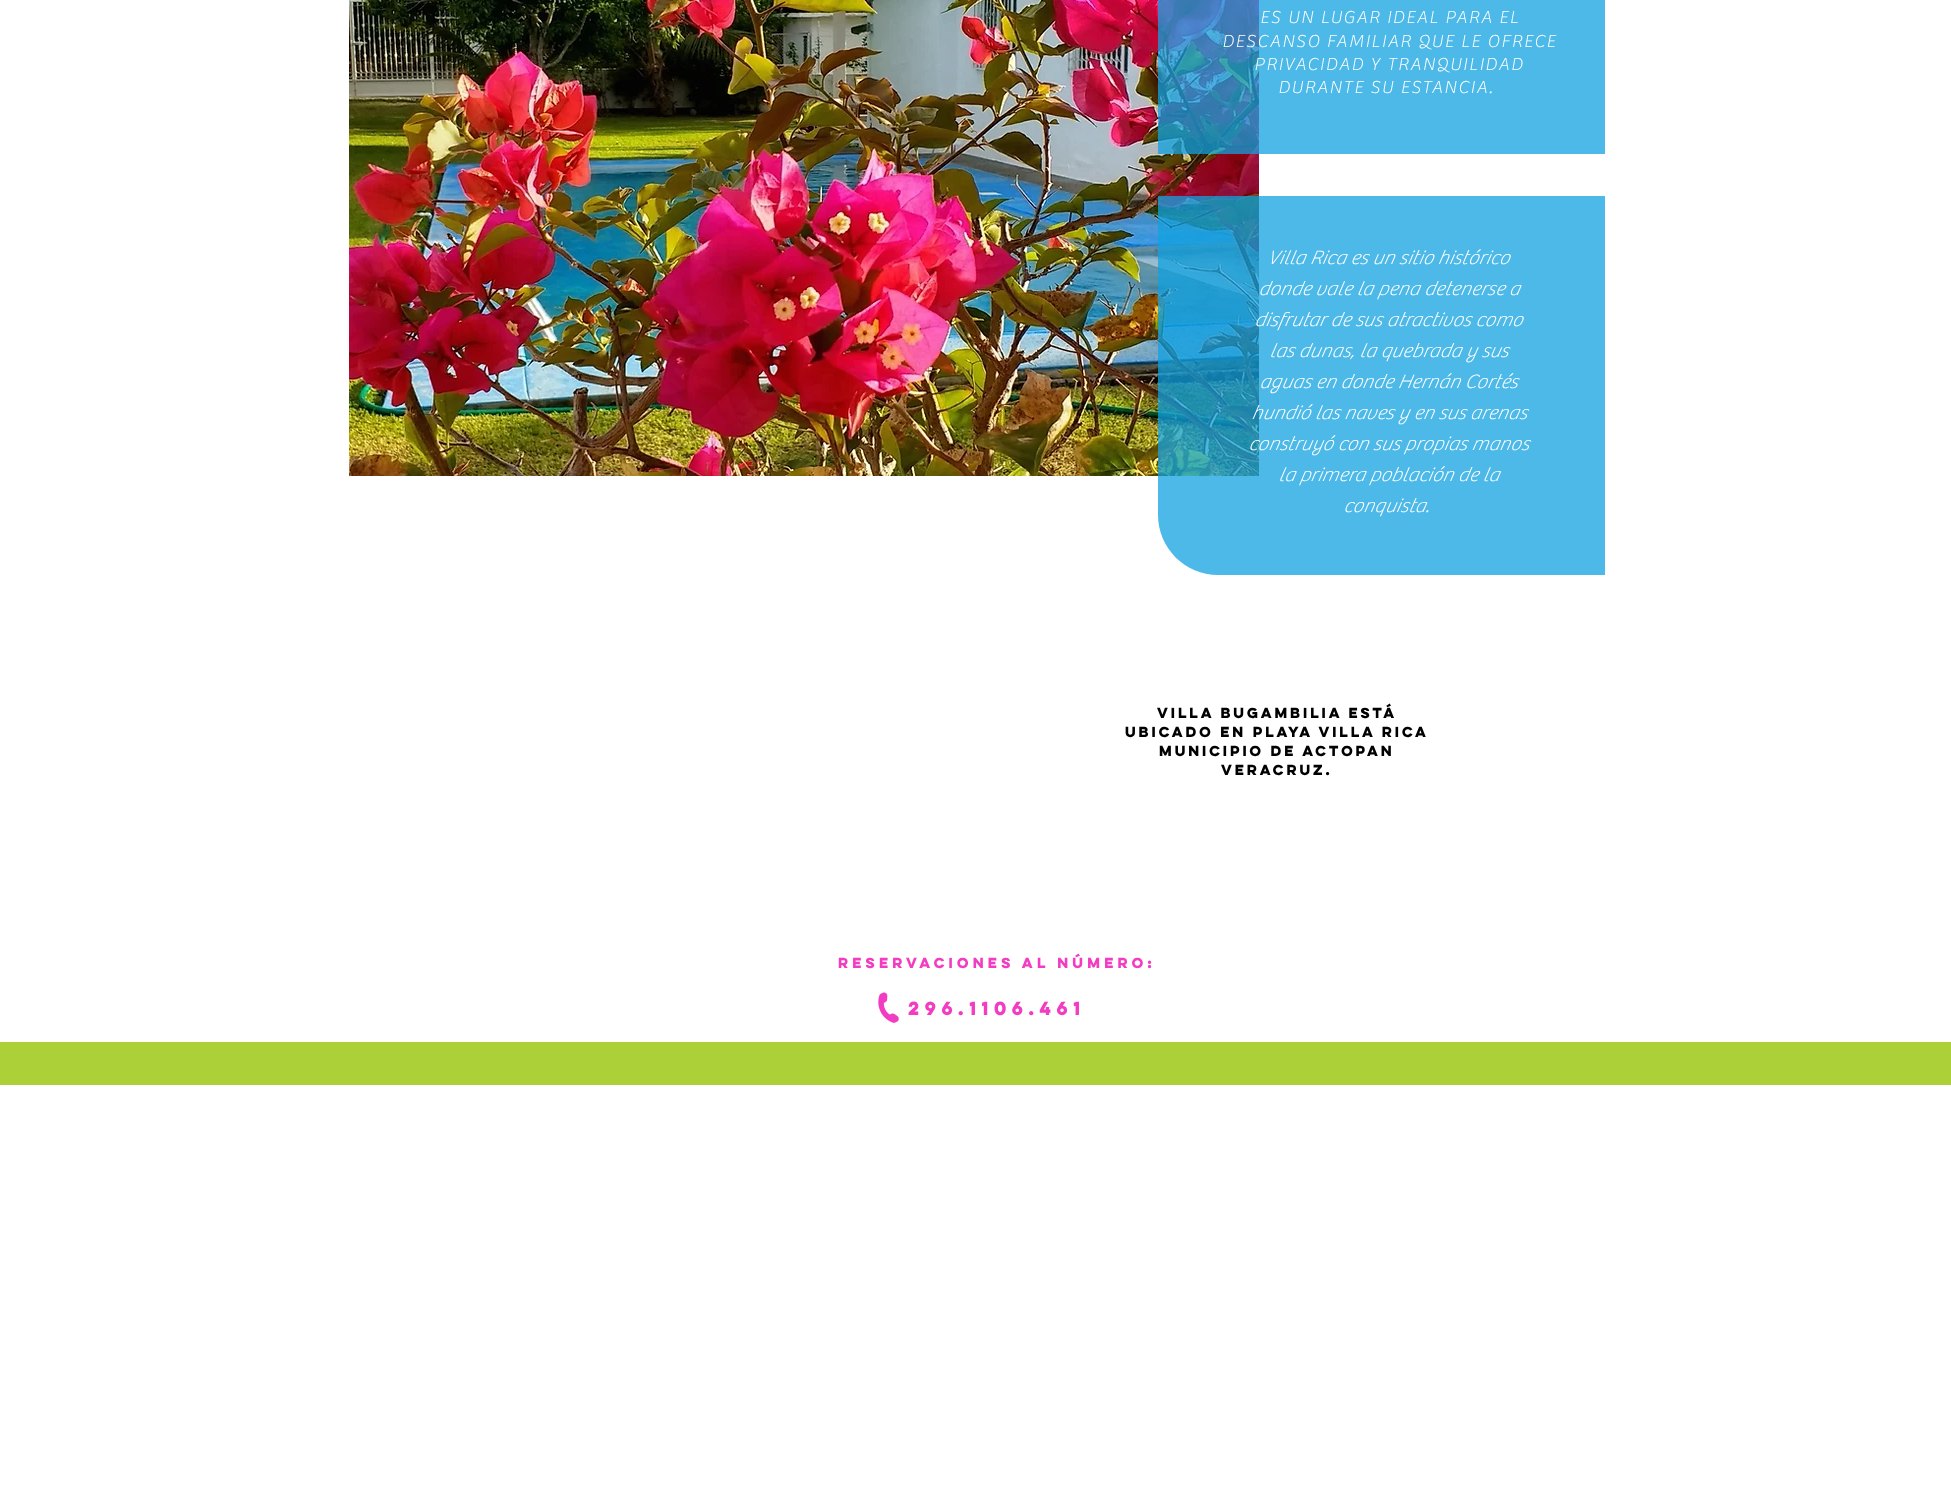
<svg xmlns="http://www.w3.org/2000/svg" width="1951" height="1510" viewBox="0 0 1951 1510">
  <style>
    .t1 { font: 100 18px 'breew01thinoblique'; letter-spacing: 1.8px; fill: #fff; }
    .t2 { font: italic 100 20px 'breew01thinoblique'; letter-spacing: 0.2px; fill: #fff; }
    .t3 { font: bold 13px 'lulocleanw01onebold'; fill: #000; }
    .t4 { font: bold 13px 'lulocleanw01onebold'; letter-spacing: 1.3px; fill: #f23dc2; }
    .t5 { font: bold 17px 'lulocleanw01onebold'; letter-spacing: 1.75px; fill: #f23dc2; }
  </style>
  <rect width="100%" height="100%" fill="#fff"/>
  <image x="349" y="0" width="910" height="476" href="images/1.png"/>
  <rect x="1158" y="0" width="447" height="154" fill="#10a2e0bf"/>
  <text x="1260" y="23" class="t1">ES UN LUGAR IDEAL PARA EL</text>
  <text x="1222" y="47" class="t1">DESCANSO FAMILIAR QUE LE OFRECE</text>
  <text x="1254" y="70" class="t1">PRIVACIDAD Y TRANQUILIDAD</text>
  <text x="1278" y="93" class="t1">DURANTE SU ESTANCIA.</text>
  <path d="M1158 196H1605V575H1218C1185 575 1158 548 1158 515Z" fill="#10a2e0bf"/>
  <text x="1267" y="264" class="t2">Villa Rica es un sitio histórico</text>
  <text x="1258" y="295" class="t2">donde vale la pena detenerse a</text>
  <text x="1254" y="326" class="t2">disfrutar de sus atractivos como</text>
  <text x="1269" y="357" class="t2">las dunas, la quebrada y sus</text>
  <text x="1259" y="388" class="t2">aguas en donde Hernán Cortés</text>
  <text x="1251" y="419" class="t2">hundió las naves y en sus arenas</text>
  <text x="1248" y="450" class="t2">construyó con sus propias manos</text>
  <text x="1278" y="481" class="t2">la primera población de la</text>
  <text x="1343" y="512" class="t2">conquista.</text>
  <text x="1157" y="718" class="t3">Villa Bugambilia está</text>
  <text x="1125" y="737" class="t3">ubicado en Playa Villa Rica</text>
  <text x="1159" y="756" class="t3">Municipio de Actopan</text>
  <text x="1221" y="775" class="t3">Veracruz.</text>
  <text x="838" y="968" class="t4">Reservaciones AL NÚMERO:</text>
  <text x="908" y="1015" class="t5">296.1106.461</text>
  <image x="878" y="992" width="21" height="31" href="images/2.png"/>
  <rect x="0" y="1042" width="1951" height="43" fill="#acd138"/>
</svg>
